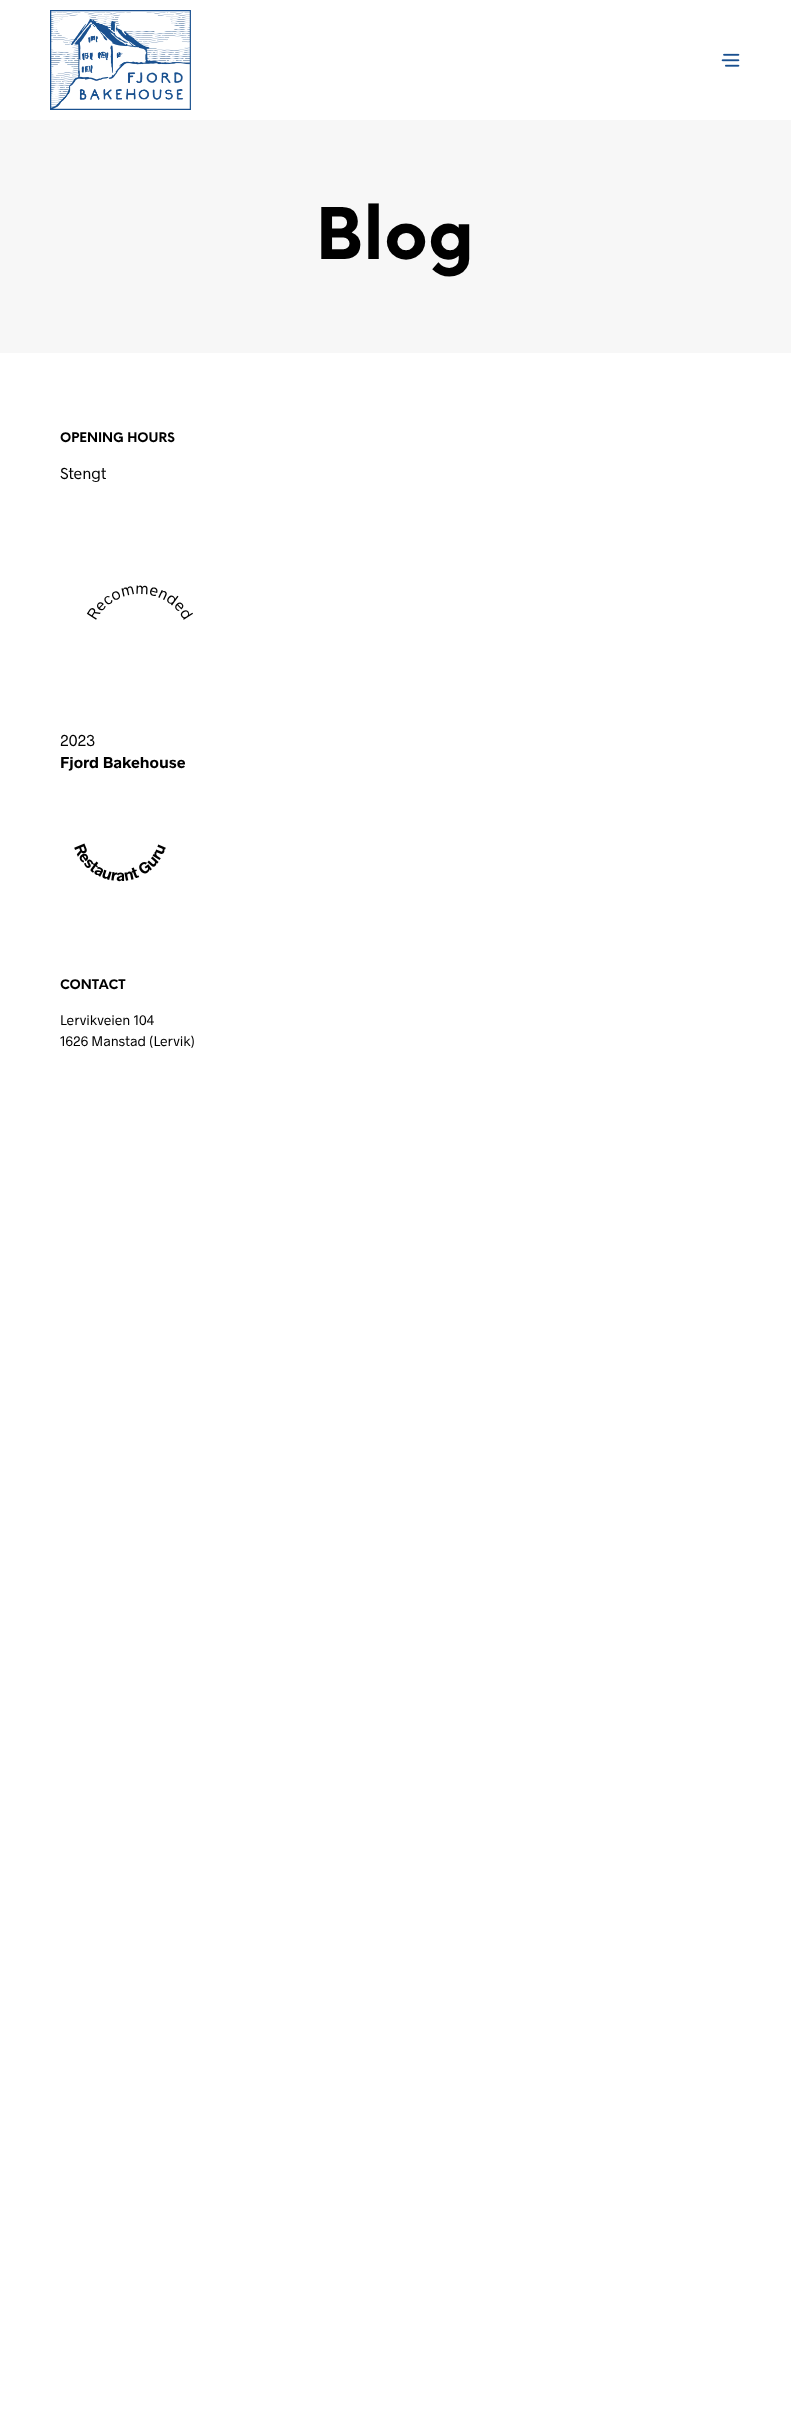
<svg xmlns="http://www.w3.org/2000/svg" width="791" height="2412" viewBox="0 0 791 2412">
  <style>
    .t1 { font: bold 69.5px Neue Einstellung; fill: #000; }
    .t2 { font: bold 13px Neue Einstellung; fill: #000; }
    .t3 { font: 16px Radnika; fill: #000; }
    .t4 { font: bold 16px Radnika; fill: #000; }
    .t5 { font: 14px Radnika; fill: #000; }
  </style>
  <rect width="100%" height="100%" fill="#fff"/>
  <rect x="0" y="120" width="791" height="233" fill="#f7f7f7"/>
  <image x="50" y="10" width="141" height="100" href="images/1.png"/>
  <image x="721" y="53" width="19" height="14" href="images/2.png"/>
  <text x="316" y="259" class="t1">Blog</text>
  <text x="60" y="442" class="t2">OPENING HOURS</text>
  <text x="60" y="479" class="t3">Stengt</text>
  <image x="86" y="585" width="107" height="35" href="images/3.png"/>
  <text x="60" y="746" class="t3">2023</text>
  <text x="60" y="768" class="t4">Fjord Bakehouse</text>
  <image x="74" y="843" width="92" height="39" href="images/4.png"/>
  <text x="60" y="989" class="t2">CONTACT</text>
  <text x="60" y="1025" class="t5">Lervikveien 104</text>
  <text x="60" y="1046" class="t5">1626 Manstad (Lervik)</text>
</svg>
